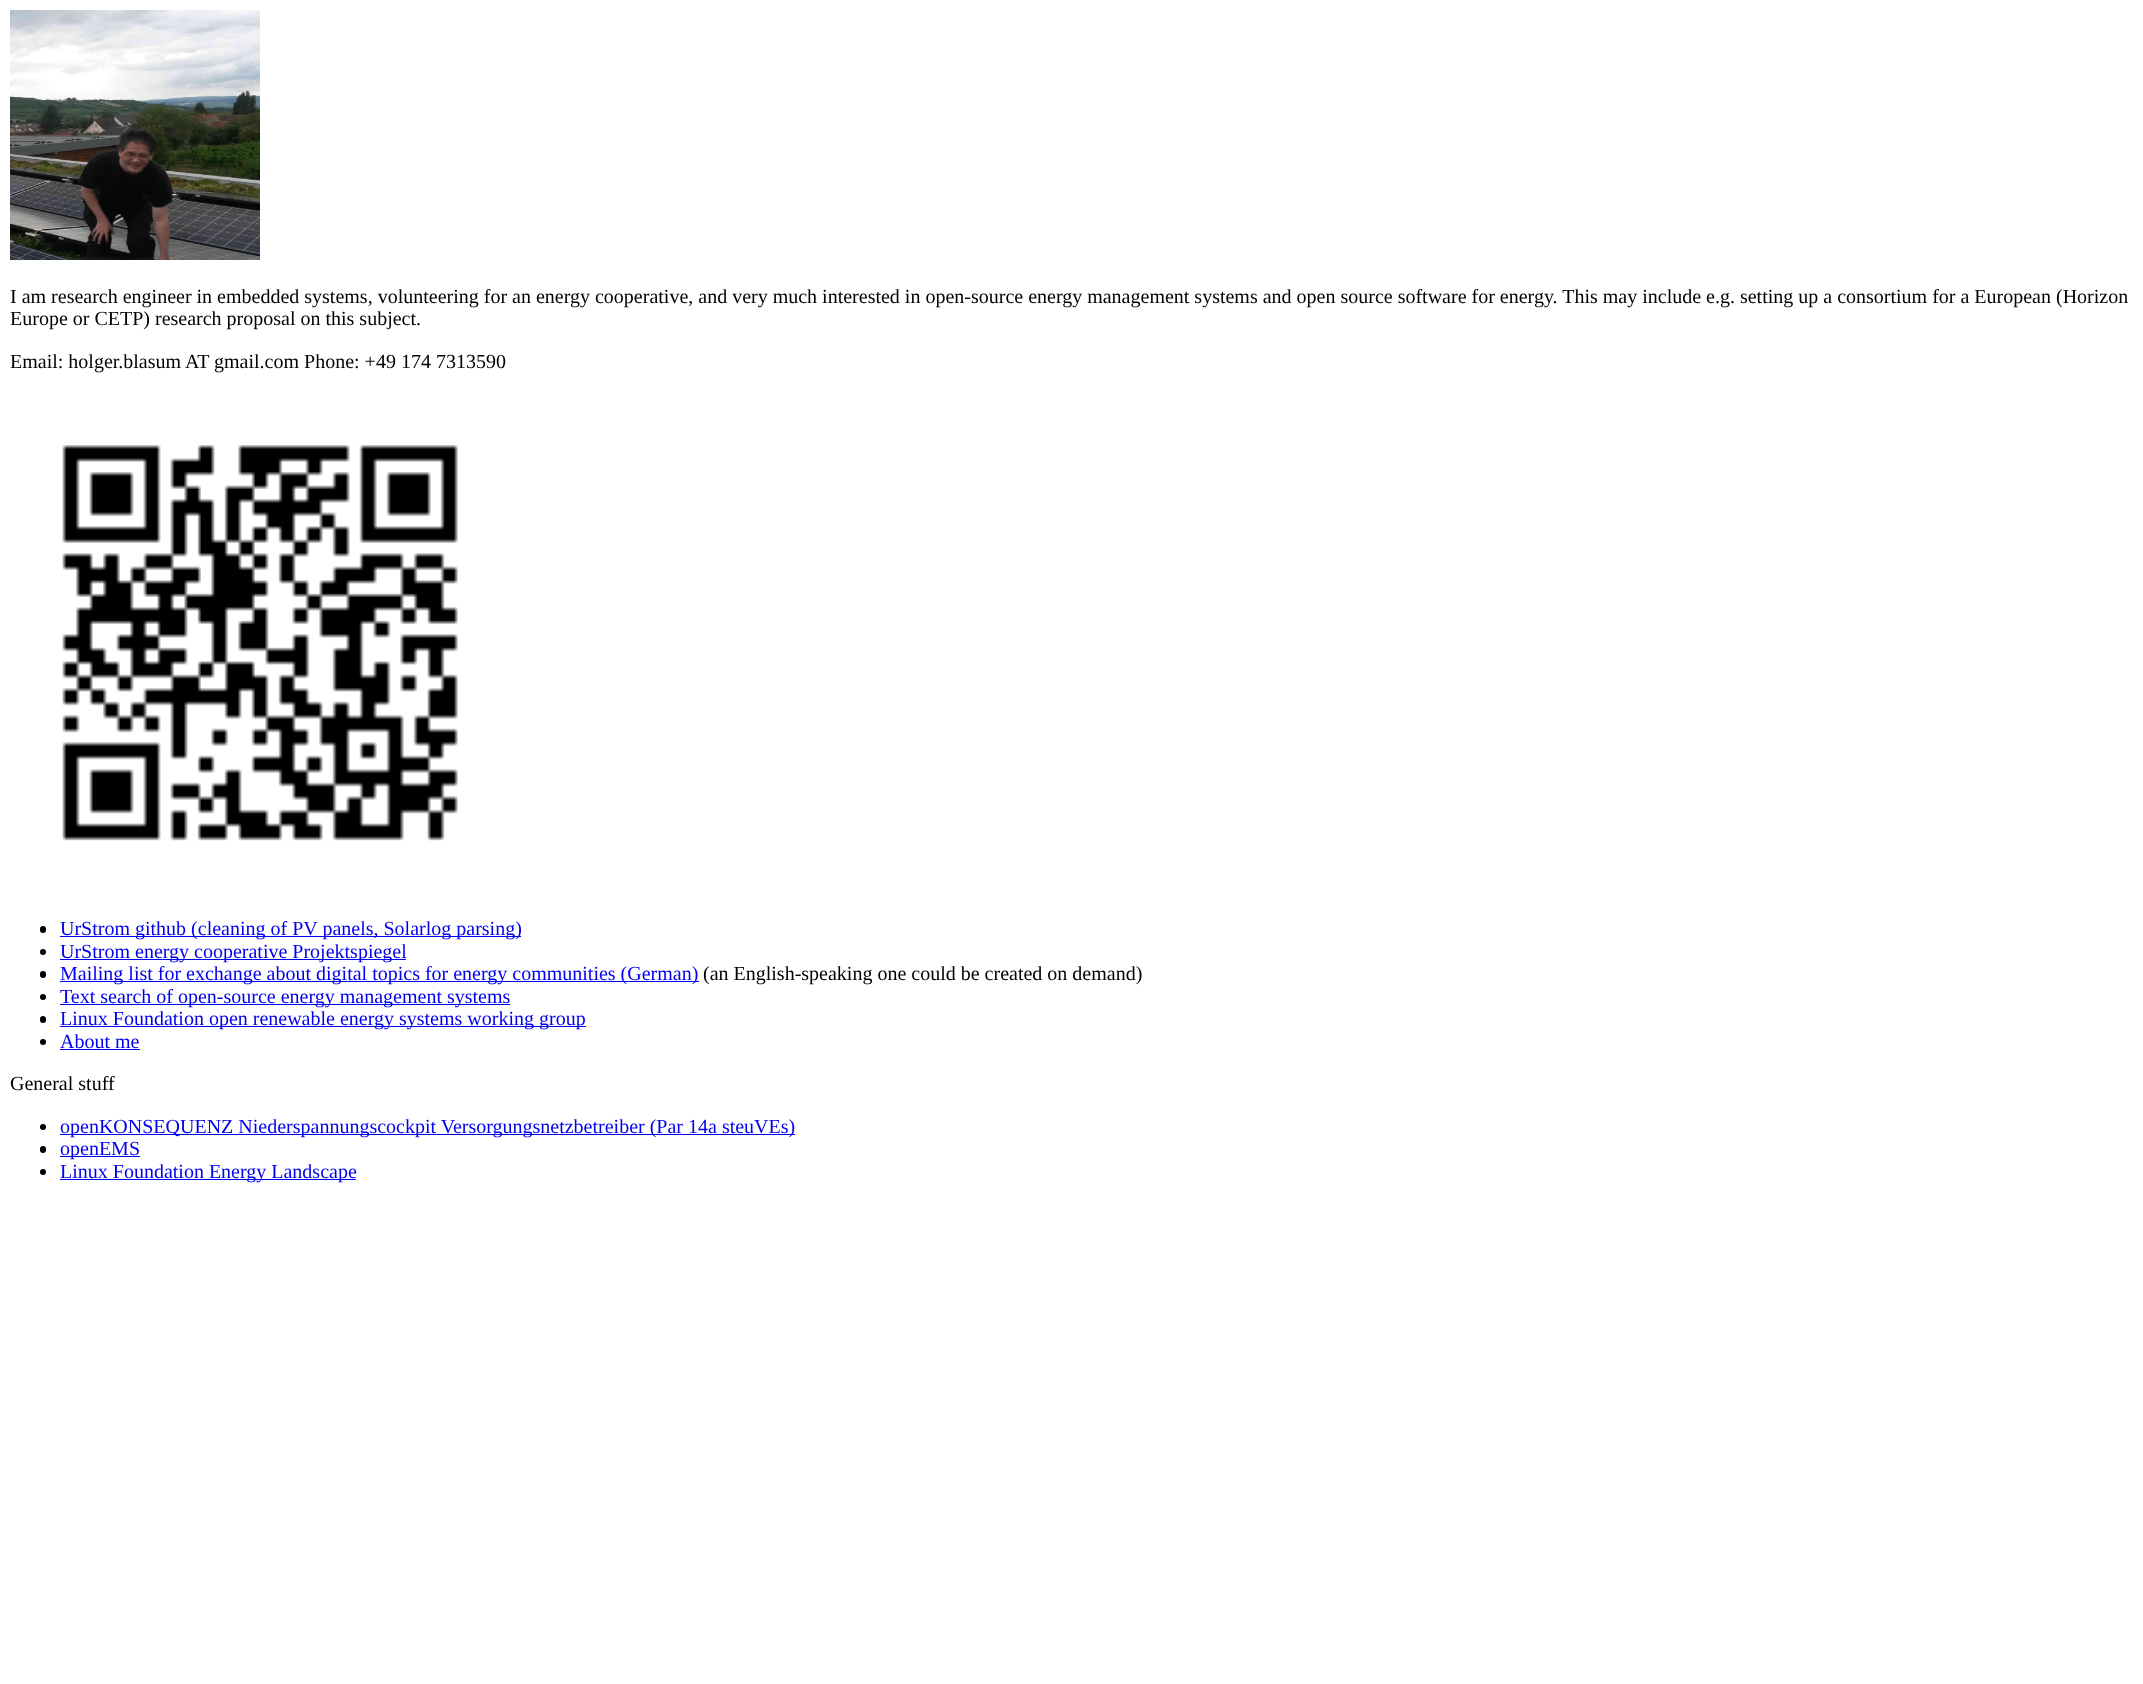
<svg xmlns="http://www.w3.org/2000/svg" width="2143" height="1684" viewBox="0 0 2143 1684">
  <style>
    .t1 { font: 20px Liberation Serif; fill: #000; }
    .t2 { font: 20px Liberation Serif; fill: #00e; }
  </style>
  <rect width="100%" height="100%" fill="#fff"/>
  <image x="10" y="10" width="250" height="250" href="images/1.png"/>
  <text x="10" y="303" class="t1">I am research engineer in embedded systems, volunteering for an energy cooperative, and very much interested in open-source energy management systems and open source software for energy. This may include e.g. setting up a consortium for a European (Horizon</text>
  <text x="10" y="325" class="t1">Europe or CETP) research proposal on this subject.</text>
  <text x="10" y="368" class="t1">Email: holger.blasum AT gmail.com Phone: +49 174 7313590</text>
  <image x="62" y="445" width="396" height="396" href="images/2.png"/>
  <rect x="40" y="926" width="6" height="7" rx="3" fill="#000"/>
  <rect x="60" y="936" width="461" height="1" fill="#00e"/>
  <text x="60" y="935" class="t2">UrStrom github (cleaning of PV panels, Solarlog parsing)</text>
  <circle cx="43" cy="952" r="3" fill="#000"/>
  <rect x="60" y="959" width="346" height="1" fill="#00e"/>
  <text x="60" y="958" class="t2">UrStrom energy cooperative Projektspiegel</text>
  <rect x="40" y="971" width="6" height="7" rx="3" fill="#000"/>
  <rect x="60" y="981" width="639" height="1" fill="#00e"/>
  <text x="60" y="980" class="t2">Mailing list for exchange about digital topics for energy communities (German)</text>
  <text x="703" y="980" class="t1">(an English-speaking one could be created on demand)</text>
  <circle cx="43" cy="997" r="3" fill="#000"/>
  <rect x="60" y="1004" width="450" height="1" fill="#00e"/>
  <text x="60" y="1003" class="t2">Text search of open-source energy management systems</text>
  <rect x="40" y="1016" width="6" height="7" rx="3" fill="#000"/>
  <rect x="60" y="1026" width="526" height="1" fill="#00e"/>
  <text x="60" y="1025" class="t2">Linux Foundation open renewable energy systems working group</text>
  <circle cx="43" cy="1042" r="3" fill="#000"/>
  <text x="60" y="1048" class="t2">About me</text>
  <rect x="60" y="1049" width="80" height="1" fill="#00e"/>
  <text x="10" y="1090" class="t1">General stuff</text>
  <circle cx="43" cy="1127" r="3" fill="#000"/>
  <rect x="60" y="1134" width="735" height="1" fill="#00e"/>
  <text x="60" y="1133" class="t2">openKONSEQUENZ Niederspannungscockpit Versorgungsnetzbetreiber (Par 14a steuVEs)</text>
  <rect x="40" y="1146" width="6" height="7" rx="3" fill="#000"/>
  <rect x="60" y="1156" width="80" height="1" fill="#00e"/>
  <text x="60" y="1155" class="t2">openEMS</text>
  <circle cx="43" cy="1172" r="3" fill="#000"/>
  <rect x="60" y="1179" width="296" height="1" fill="#00e"/>
  <text x="60" y="1178" class="t2">Linux Foundation Energy Landscape</text>
</svg>
